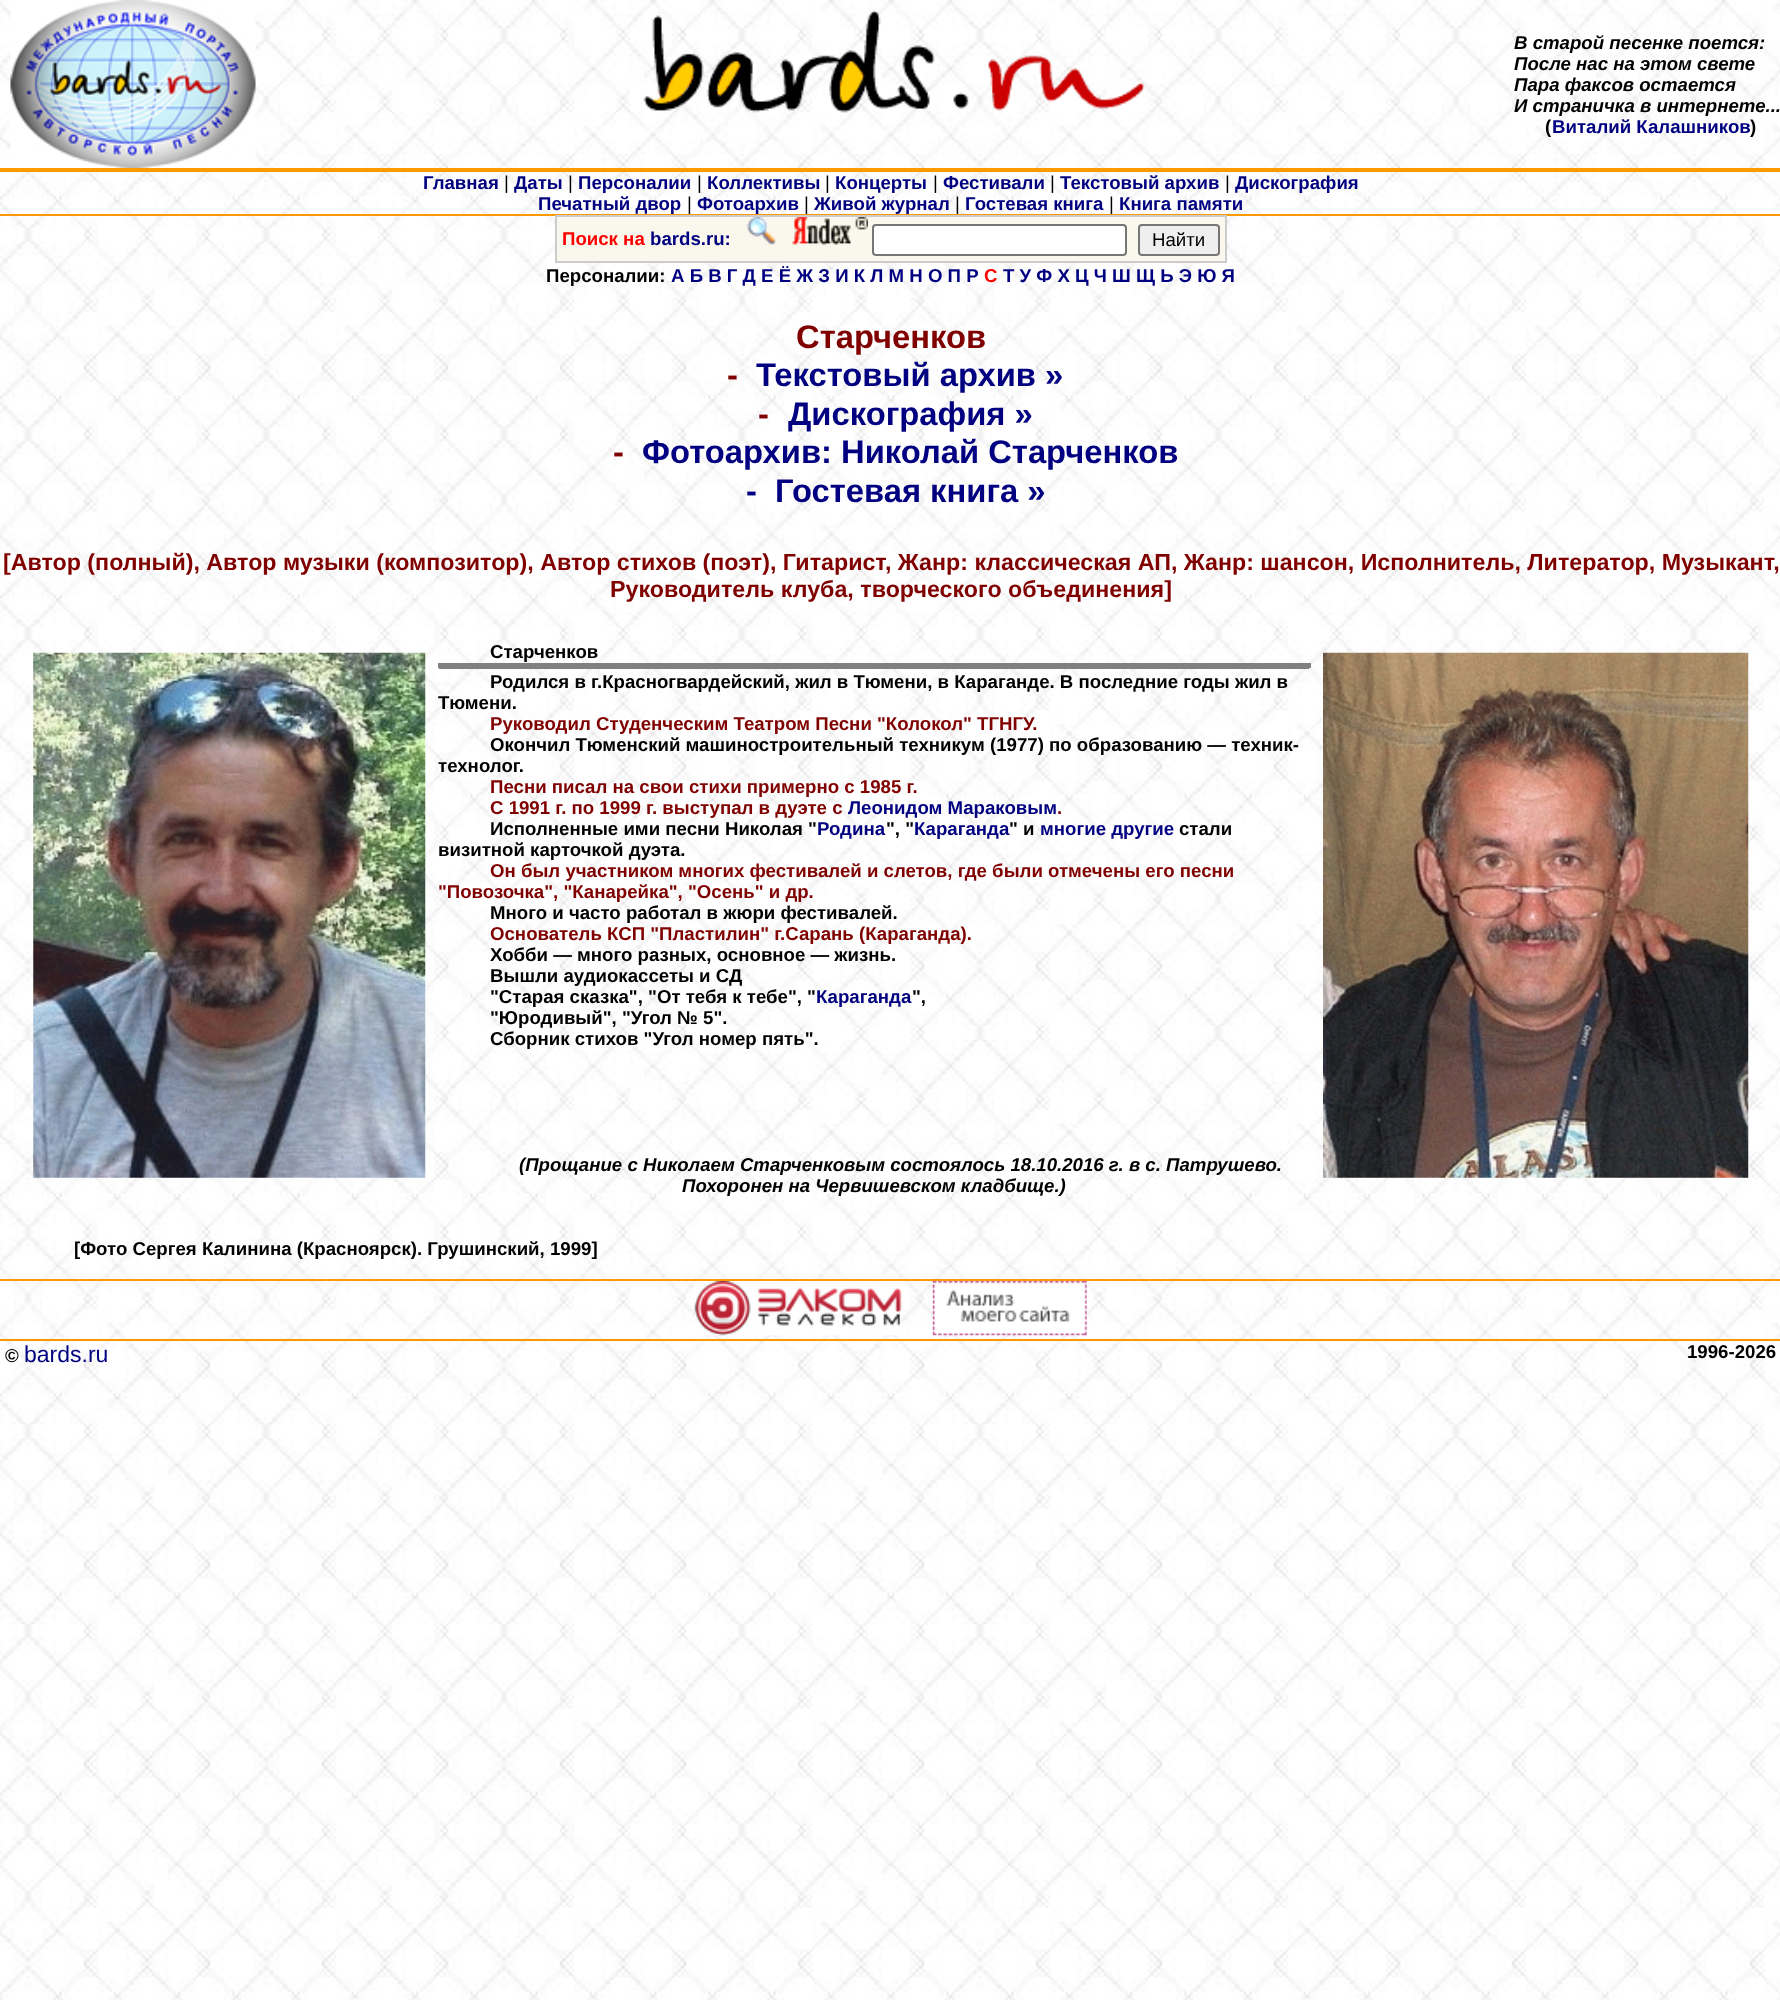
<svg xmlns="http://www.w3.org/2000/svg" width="1780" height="2000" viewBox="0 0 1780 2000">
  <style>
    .t1 { font: italic bold 18.65px Liberation Sans; fill: #000; }
    .t2 { font: bold 18.65px Liberation Sans; fill: #000; }
    .t3 { font: bold 18.65px Liberation Sans; fill: #000080; }
    .t4 { font: 18.65px Liberation Sans; fill: #000; }
    .t5 { font: bold 18.65px Liberation Sans; fill: #f00; }
    .t6 { font: bold 32.75px Liberation Sans; fill: #800000; }
    .t7 { font: bold 32.75px Liberation Sans; fill: #000080; }
    .t8 { font: bold 23.25px Liberation Sans; fill: #800000; }
    .t9 { font: bold 18.65px Liberation Sans; fill: #800000; }
    .t10 { font: 23px Liberation Sans; fill: #000080; }
  </style>
  <rect width="100%" height="100%" fill="#fff"/>
  <image x="0" y="0" width="1780" height="2000" href="images/1.png"/>
  <image x="10" y="0" width="246" height="168" href="images/2.png"/>
  <image x="643" y="10" width="502" height="103" href="images/3.png"/>
  <text x="1514" y="49" class="t1">В старой песенке поется:</text>
  <text x="1514" y="70" class="t1">После нас на этом свете</text>
  <text x="1514" y="91" class="t1">Пара факсов остается</text>
  <text x="1514" y="112" class="t1">И страничка в интернете...</text>
  <text x="1545" y="133" class="t2">(</text>
  <text x="1552" y="133" class="t3">Виталий Калашников</text>
  <text x="1750" y="133" class="t2">)</text>
  <rect x="0" y="168" width="1780" height="4" fill="#f90"/>
  <text x="423" y="189" class="t3">Главная</text>
  <text x="504" y="189" class="t4">|</text>
  <text x="514" y="189" class="t3">Даты</text>
  <text x="568" y="189" class="t4">|</text>
  <text x="578" y="189" class="t3">Персоналии</text>
  <text x="697" y="189" class="t4">|</text>
  <text x="707" y="189" class="t3">Коллективы</text>
  <text x="825" y="189" class="t4">|</text>
  <text x="835" y="189" class="t3">Концерты</text>
  <text x="933" y="189" class="t4">|</text>
  <text x="943" y="189" class="t3">Фестивали</text>
  <text x="1050" y="189" class="t4">|</text>
  <text x="1060" y="189" class="t3">Текстовый архив</text>
  <text x="1225" y="189" class="t4">|</text>
  <text x="1235" y="189" class="t3">Дискография</text>
  <text x="538" y="210" class="t3">Печатный двор</text>
  <text x="687" y="210" class="t4">|</text>
  <text x="697" y="210" class="t3">Фотоархив</text>
  <text x="804" y="210" class="t4">|</text>
  <text x="814" y="210" class="t3">Живой журнал</text>
  <text x="955" y="210" class="t4">|</text>
  <text x="965" y="210" class="t3">Гостевая книга</text>
  <text x="1109" y="210" class="t4">|</text>
  <text x="1119" y="210" class="t3">Книга памяти</text>
  <rect x="0" y="214" width="1780" height="2" fill="#f90"/>
  <rect x="556" y="216" width="670" height="46" fill="#faf7ed" stroke="#ccc" stroke-width="2"/>
  <text x="562" y="245" class="t5">Поиск на</text>
  <text x="650" y="245" class="t3">bards.ru:</text>
  <image x="747" y="217" width="29" height="28" href="images/4.png"/>
  <image x="792" y="217" width="76" height="28" href="images/5.png"/>
  <rect x="873" y="225" width="253" height="30" rx="3" fill="#fff" stroke="#767676" stroke-width="2"/>
  <rect x="1139" y="225" width="80" height="30" rx="3" fill="#efefef" stroke="#767676" stroke-width="2"/>
  <text x="1152" y="246" class="t4">Найти</text>
  <text x="546" y="282" class="t2">Персоналии:</text>
  <text x="671" y="282" class="t3">А Б В Г Д Е Ё Ж З И К Л М Н О П Р</text>
  <text x="984" y="282" class="t5">С</text>
  <text x="1003" y="282" class="t3">Т У Ф Х Ц Ч Ш Щ Ь Э Ю Я</text>
  <text x="796" y="348" class="t6">Старченков</text>
  <text x="727" y="386" class="t6">-</text>
  <text x="756" y="386" class="t7">Текстовый архив »</text>
  <text x="758" y="425" class="t6">-</text>
  <text x="788" y="425" class="t7">Дискография »</text>
  <text x="613" y="463" class="t6">-</text>
  <text x="642" y="463" class="t7">Фотоархив: Николай Старченков</text>
  <text x="746" y="502" class="t7">-</text>
  <text x="775" y="502" class="t7">Гостевая книга »</text>
  <text x="3" y="570" word-spacing="-0.1" class="t8">[Автор (полный), Автор музыки (композитор), Автор стихов (поэт), Гитарист, Жанр: классическая АП, Жанр: шансон, Исполнитель, Литератор, Музыкант,</text>
  <text x="610" y="597" class="t8">Руководитель клуба, творческого объединения]</text>
  <text x="490" y="658" class="t2">Старченков</text>
  <rect x="439" y="665" width="870" height="4" fill="#808080"/>
  <rect x="438" y="663" width="873" height="2" fill="#808080"/>
  <rect x="1309" y="663" width="2" height="5" fill="#808080"/>
  <rect x="438" y="663" width="1" height="5" fill="#808080"/>
  <text x="490" y="688" class="t2">Родился в г.Красногвардейский, жил в Тюмени, в Караганде. В последние годы жил в</text>
  <text x="438" y="709" class="t2">Тюмени.</text>
  <text x="490" y="730" class="t9">Руководил Студенческим Театром Песни "Колокол" ТГНГУ.</text>
  <text x="490" y="751" class="t2">Окончил Тюменский машиностроительный техникум (1977) по образованию — техник-</text>
  <text x="438" y="772" class="t2">технолог.</text>
  <text x="490" y="793" class="t9">Песни писал на свои стихи примерно с 1985 г.</text>
  <text x="490" y="814" class="t9">С 1991 г. по 1999 г. выступал в дуэте с</text>
  <text x="848" y="814" class="t3">Леонидом Мараковым</text>
  <text x="1057" y="814" class="t9">.</text>
  <text x="490" y="835" class="t2">Исполненные ими песни Николая "</text>
  <text x="817" y="835" class="t3">Родина</text>
  <text x="886" y="835" class="t2">", "</text>
  <text x="914" y="835" class="t3">Караганда</text>
  <text x="1009" y="835" class="t2">" и</text>
  <text x="1040" y="835" class="t3">многие другие</text>
  <text x="1179" y="835" class="t2">стали</text>
  <text x="438" y="856" class="t2">визитной карточкой дуэта.</text>
  <text x="490" y="877" class="t9">Он был участником многих фестивалей и слетов, где были отмечены его песни</text>
  <text x="438" y="898" class="t9">"Повозочка", "Канарейка", "Осень" и др.</text>
  <text x="490" y="919" class="t2">Много и часто работал в жюри фестивалей.</text>
  <text x="490" y="940" class="t9">Основатель КСП "Пластилин" г.Сарань (Караганда).</text>
  <text x="490" y="961" class="t2">Хобби — много разных, основное — жизнь.</text>
  <text x="490" y="982" class="t2">Вышли аудиокассеты и СД</text>
  <text x="490" y="1003" class="t2">"Старая сказка", "От тебя к тебе", "</text>
  <text x="816" y="1003" class="t3">Караганда</text>
  <text x="912" y="1003" class="t2">",</text>
  <text x="490" y="1024" class="t2">"Юродивый", "Угол № 5".</text>
  <text x="490" y="1045" class="t2">Сборник стихов "Угол номер пять".</text>
  <text x="519" y="1171" class="t1">(Прощание с Николаем Старченковым состоялось 18.10.2016 г. в с. Патрушево.</text>
  <text x="682" y="1192" class="t1">Похоронен на Червишевском кладбище.)</text>
  <text x="74" y="1255" class="t2">[Фото Сергея Калинина (Красноярск). Грушинский, 1999]</text>
  <image x="33" y="652" width="393" height="526" href="images/6.png"/>
  <image x="1323" y="652" width="426" height="526" href="images/7.png"/>
  <rect x="0" y="1279" width="1780" height="2" fill="#f90"/>
  <image x="694" y="1281" width="208" height="55" href="images/8.png"/>
  <image x="932" y="1281" width="155" height="55" href="images/9.png"/>
  <rect x="0" y="1339" width="1780" height="2" fill="#f90"/>
  <text x="5" y="1362" class="t2">©</text>
  <text x="24" y="1362" class="t10">bards.ru</text>
  <text x="1687" y="1358" class="t2">1996-2026</text>
</svg>
